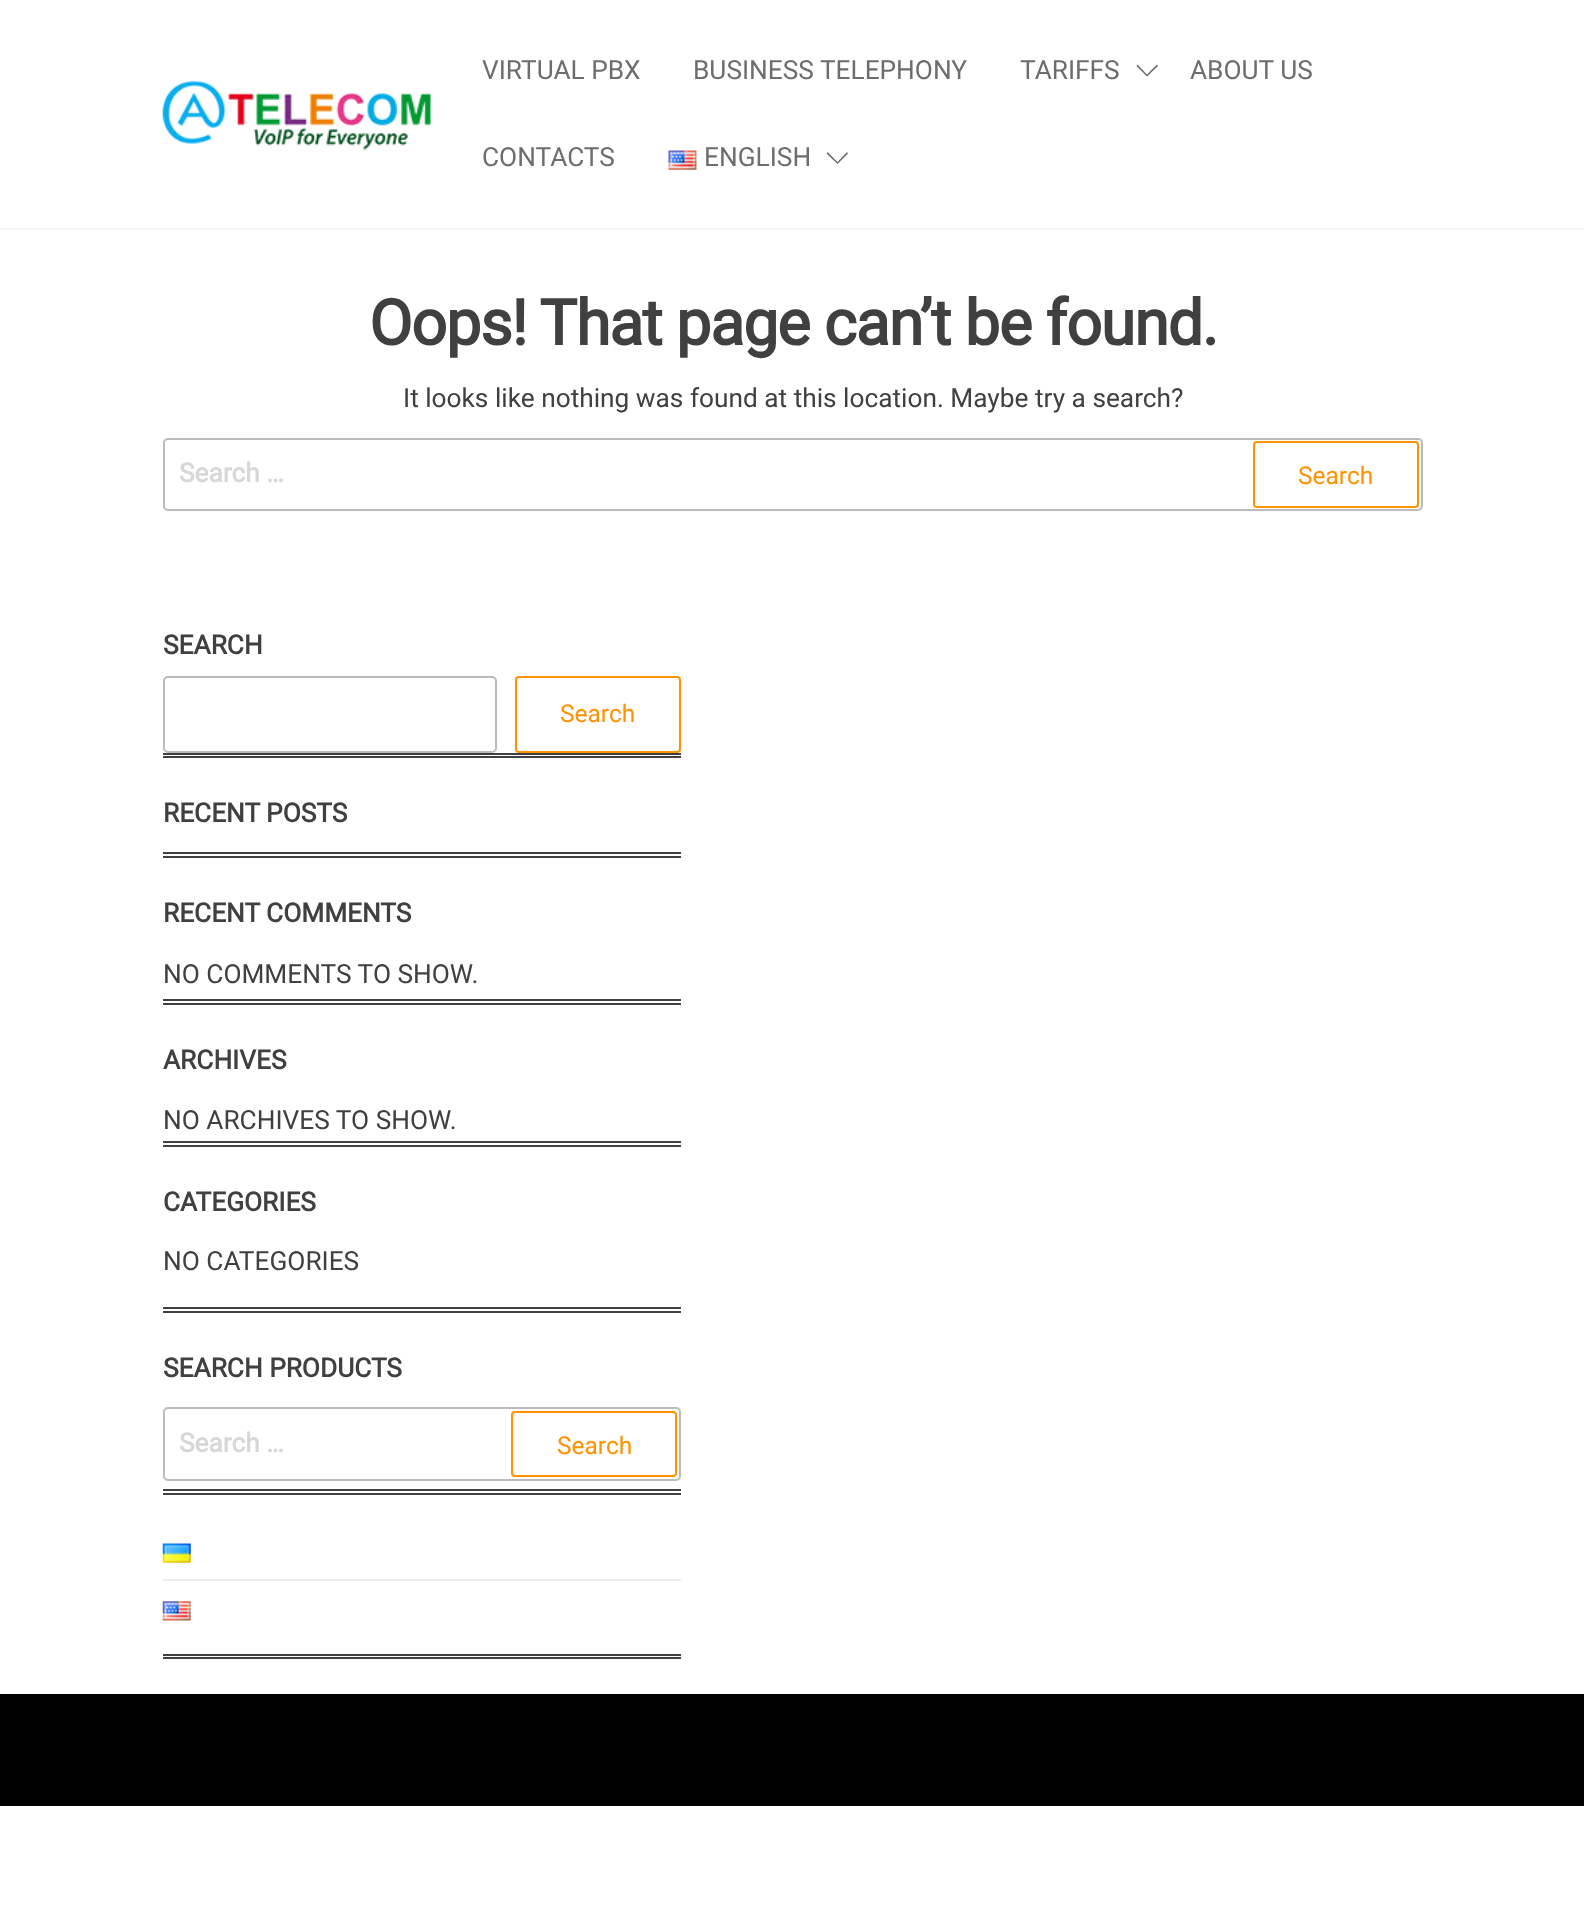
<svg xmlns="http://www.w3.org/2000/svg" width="1584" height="1923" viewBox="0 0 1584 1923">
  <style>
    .t1 { font: 26.25px Roboto; fill: #6d6d6d; }
    .t2 { font: bold 63px Roboto; letter-spacing: -1.25px; fill: #404040; }
    .t3 { font: 26.25px Roboto; fill: #404040; }
    .t4 { font: bold 26.25px Roboto; fill: #d7d7d7; }
    .t5 { font: 24.5px Roboto; fill: #ff9200; }
    .t6 { font: bold 26.25px Roboto; fill: #404040; }
  </style>
  <rect width="100%" height="100%" fill="#fff"/>
  <rect x="0" y="228" width="1584" height="2" fill="#f6f6f6"/>
  <image x="162" y="80" width="269" height="71" href="images/1.png"/>
  <text x="482" y="79" class="t1">VIRTUAL PBX</text>
  <text x="693" y="79" class="t1">BUSINESS TELEPHONY</text>
  <text x="1020" y="79" class="t1">TARIFFS</text>
  <path d="M1137.5 64.5L1136.5 66L1147 76.5L1158 66L1157 64.5L1147 74.5Z" fill="#6d6d6d"/>
  <text x="1190" y="79" class="t1">ABOUT US</text>
  <text x="482" y="166" class="t1">CONTACTS</text>
  <image x="668" y="150" width="29" height="20" href="images/2.png"/>
  <text x="704" y="166" class="t1">ENGLISH</text>
  <path d="M827.5 152L826.5 153.5L837.5 164L848 153.5L847 152L837.5 162Z" fill="#6d6d6d"/>
  <text x="369" y="345" class="t2">Oops! That page can’t be found.</text>
  <text x="403" y="407" class="t3">It looks like nothing was found at this location. Maybe try a search?</text>
  <rect x="164" y="439" width="1258" height="71" rx="4" fill="none" stroke="#bbb" stroke-width="2"/>
  <text x="179" y="482" class="t4">Search …</text>
  <rect x="1254" y="442" width="164" height="65" rx="3" fill="none" stroke="#ff9200" stroke-width="2"/>
  <text x="1298" y="484" class="t5">Search</text>
  <rect x="163" y="753" width="518" height="2" fill="#404040"/>
  <rect x="163" y="756" width="518" height="2" fill="#404040"/>
  <text x="163" y="654" class="t6">SEARCH</text>
  <rect x="164" y="677" width="332" height="75" rx="4" fill="none" stroke="#bbb" stroke-width="2"/>
  <rect x="516" y="677" width="164" height="75" rx="3" fill="none" stroke="#ff9200" stroke-width="2"/>
  <text x="560" y="722" class="t5">Search</text>
  <rect x="163" y="852" width="518" height="2" fill="#404040"/>
  <rect x="163" y="856" width="518" height="2" fill="#404040"/>
  <text x="163" y="822" class="t6">RECENT POSTS</text>
  <rect x="163" y="999" width="518" height="2" fill="#404040"/>
  <rect x="163" y="1003" width="518" height="2" fill="#404040"/>
  <text x="163" y="922" class="t6">RECENT COMMENTS</text>
  <text x="163" y="983" class="t3">NO COMMENTS TO SHOW.</text>
  <rect x="163" y="1141" width="518" height="2" fill="#404040"/>
  <rect x="163" y="1145" width="518" height="2" fill="#404040"/>
  <text x="163" y="1069" class="t6">ARCHIVES</text>
  <text x="163" y="1129" class="t3">NO ARCHIVES TO SHOW.</text>
  <rect x="163" y="1307" width="518" height="2" fill="#404040"/>
  <rect x="163" y="1311" width="518" height="2" fill="#404040"/>
  <text x="163" y="1211" class="t6">CATEGORIES</text>
  <text x="163" y="1270" class="t3">NO CATEGORIES</text>
  <rect x="163" y="1489" width="518" height="2" fill="#404040"/>
  <rect x="163" y="1493" width="518" height="2" fill="#404040"/>
  <text x="163" y="1377" class="t6">SEARCH PRODUCTS</text>
  <rect x="164" y="1408" width="516" height="72" rx="4" fill="none" stroke="#bbb" stroke-width="2"/>
  <text x="179" y="1452" class="t4">Search …</text>
  <rect x="512" y="1412" width="164" height="64" rx="3" fill="none" stroke="#ff9200" stroke-width="2"/>
  <text x="557" y="1454" class="t5">Search</text>
  <rect x="163" y="1654" width="518" height="2" fill="#404040"/>
  <rect x="163" y="1657" width="518" height="2" fill="#404040"/>
  <rect x="163" y="1579" width="518" height="2" fill="#ebebeb"/>
  <image x="162" y="1543" width="29" height="20" href="images/3.png"/>
  <image x="162" y="1601" width="29" height="20" href="images/4.png"/>
  <rect x="0" y="1694" width="1584" height="112" fill="#000"/>
</svg>
